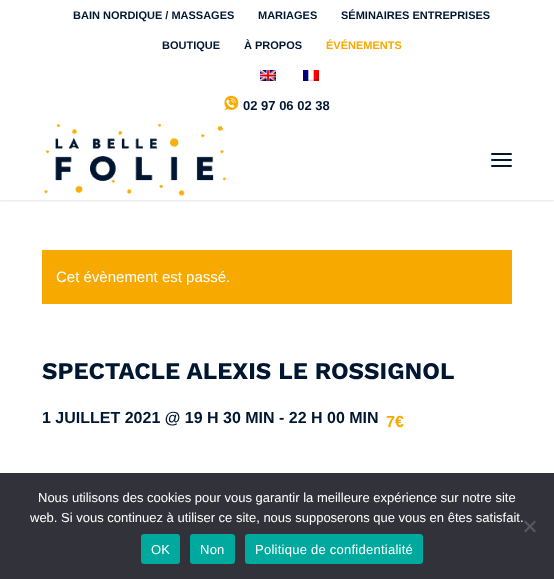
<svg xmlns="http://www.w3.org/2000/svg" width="554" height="579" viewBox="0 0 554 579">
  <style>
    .t1 { font: bold 11px Liberation Sans; fill: #001732; }
    .t2 { font: bold 11px Liberation Sans; fill: #f8a900; }
    .t3 { font: bold 13px Liberation Sans; fill: #001732; }
    .t4 { font: 15px Liberation Sans; fill: #fff; }
    .t5 { font: bold 24px Work Sans; fill: #001732; }
    .t6 { font: bold 16px Liberation Sans; fill: #001732; }
    .t7 { font: bold 16px Liberation Sans; fill: #f8a900; }
    .t8 { font: 13px Liberation Sans; fill: #fff; }
    .t9 { font: 13px Liberation Sans; letter-spacing: 0.25px; fill: #fff; }
  </style>
  <defs>
    <clipPath id="clip1"><rect x="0" y="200" width="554" height="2"/></clipPath>
  </defs>
  <rect width="100%" height="100%" fill="#fff"/>
  <g clip-path="url(#clip1)">
    <rect x="-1" y="-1" width="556" height="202" fill="#0000001a" filter="blur(1px)"/>
  </g>
  <text x="73" y="19" class="t1">BAIN NORDIQUE / MASSAGES</text>
  <text x="258" y="19" class="t1">MARIAGES</text>
  <text x="341" y="19" class="t1">SÉMINAIRES ENTREPRISES</text>
  <text x="162" y="49" class="t1">BOUTIQUE</text>
  <text x="244" y="49" class="t1">À PROPOS</text>
  <text x="326" y="49" class="t2">ÉVÉNEMENTS</text>
  <image x="260" y="70" width="16" height="11" href="images/1.png"/>
  <image x="303" y="70" width="16" height="11" href="images/2.png"/>
  <image x="224" y="95" width="15" height="15" href="images/3.png"/>
  <text x="243" y="110" class="t3">02 97 06 02 38</text>
  <image x="44" y="124" width="182" height="72" href="images/4.png"/>
  <rect x="491" y="159" width="21" height="2" rx="1" fill="#001732"/>
  <rect x="491" y="153" width="21" height="2" rx="1" fill="#001732"/>
  <rect x="491" y="165" width="21" height="2" rx="1" fill="#001732"/>
  <rect x="42" y="250" width="470" height="54" fill="#f8a900"/>
  <text x="56" y="282" class="t4">Cet évènement est passé.</text>
  <text x="42" y="379" class="t5">SPECTACLE ALEXIS LE ROSSIGNOL</text>
  <text x="42" y="423" class="t6">1 JUILLET 2021 @ 19 H 30 MIN - 22 H 00 MIN</text>
  <text x="386" y="427" class="t7">7€</text>
  <rect x="0" y="473" width="554" height="106" fill="#32323a"/>
  <text x="38" y="502" class="t8">Nous utilisons des cookies pour vous garantir la meilleure expérience sur notre site</text>
  <text x="30" y="522" class="t8">web. Si vous continuez à utiliser ce site, nous supposerons que vous en êtes satisfait.</text>
  <path d="M534.5 520.5L536 522L525.5 532.5L524 531Z" fill="#59595d"/>
  <path d="M524 522L525.5 520.5L536 531L534.5 532.5Z" fill="#59595d"/>
  <rect x="141" y="534" width="39" height="30" rx="3" fill="#00a99d"/>
  <text x="151" y="554" class="t9">OK</text>
  <rect x="190" y="534" width="45" height="30" rx="3" fill="#00a99d"/>
  <text x="200" y="554" class="t9">Non</text>
  <rect x="245" y="534" width="178" height="30" rx="3" fill="#00a99d"/>
  <text x="255" y="554" class="t9">Politique de confidentialité</text>
</svg>
